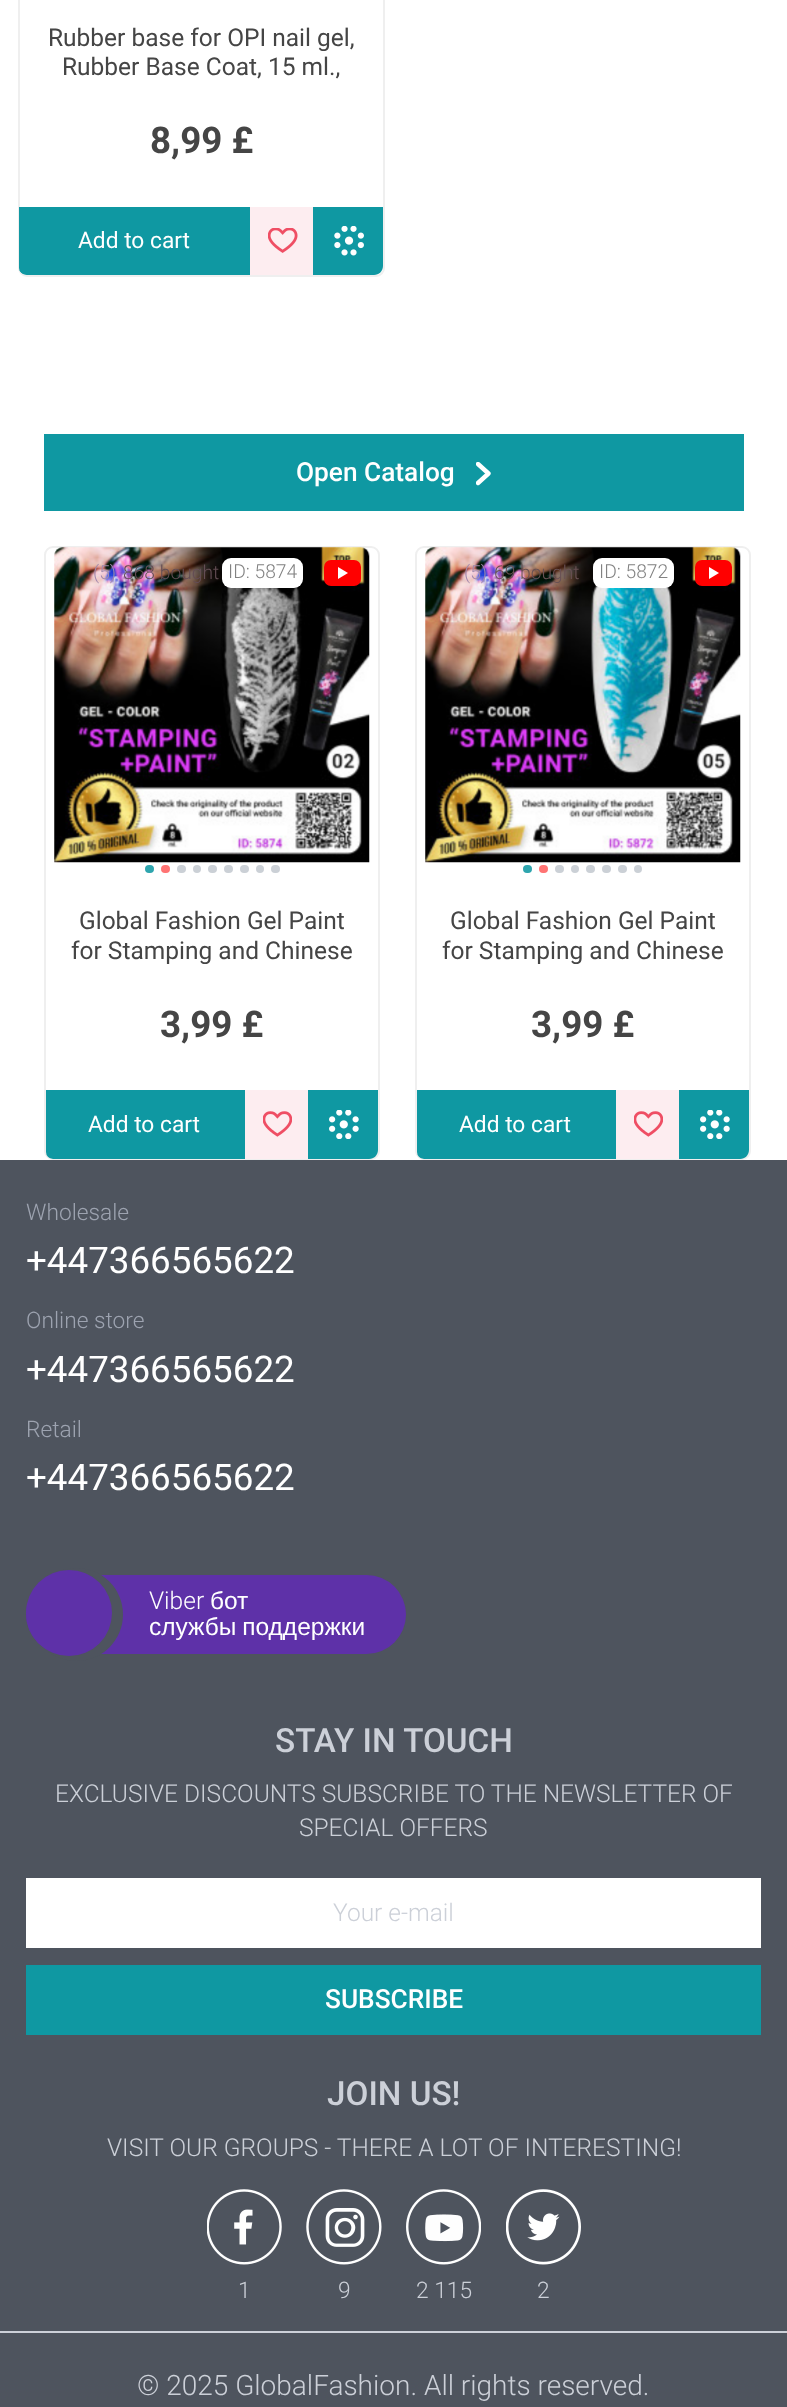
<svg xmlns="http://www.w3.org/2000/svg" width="787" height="2407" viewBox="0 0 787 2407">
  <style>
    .t1 { font: 24.5px Roboto; fill: #454545; }
    .t2 { font: bold 36.75px Roboto; fill: #454545; }
    .t3 { font: 22.75px Roboto; fill: #fff; }
    .t4 { font: 500 26.25px Roboto; fill: #fff; }
    .t5 { font: 300 19.25px Roboto; fill: #a18aae; }
    .t6 { font: 300 19.25px Roboto; fill: #634d54; }
    .t7 { font: 300 19.25px Roboto; fill: #828282; }
    .t8 { font: 300 19.25px Roboto; fill: #695154; }
    .t9 { font: 300 22.75px Roboto; fill: #9da3b0; }
    .t10 { font: 36.75px Roboto; fill: #fff; }
    .t11 { font: 300 24.5px Roboto; fill: #fff; }
    .t12 { font: 24.5px Liberation Sans; fill: #fff; }
    .t13 { font: 500 33.25px Roboto; fill: #ccd0d8; }
    .t14 { font: 300 24.5px Roboto; fill: #ccd0d8; }
    .t15 { font: 300 22.75px Roboto; fill: #ccd0d8; }
    .t16 { font: 300 28px Roboto; fill: #ccd0d8; }
  </style>
  <defs>
    <clipPath id="clip1"><rect x="19" y="-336" width="364" height="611" rx="7"/></clipPath>
    <clipPath id="clip2"><rect x="476" y="462" width="16" height="25"/></clipPath>
    <clipPath id="clip3"><rect x="46" y="548" width="332" height="611" rx="7"/></clipPath>
    <clipPath id="clip4"><rect x="417" y="548" width="332" height="611" rx="7"/></clipPath>
  </defs>
  <rect width="100%" height="100%" fill="#fff"/>
  <rect x="19" y="-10" width="365" height="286" rx="8" fill="none" stroke="#efefef" stroke-width="2"/>
  <text x="48" y="46" class="t1">Rubber base for OPI nail gel,</text>
  <text x="62" y="75" class="t1">Rubber Base Coat, 15 ml.,</text>
  <text x="150" y="153" class="t2">8,99 £</text>
  <g clip-path="url(#clip1)">
    <path d="M18 207H250V275H27C22 275 18 271 18 266Z" fill="#0f98a2"/>
  </g>
  <text x="78" y="248" class="t3">Add to cart</text>
  <rect x="250" y="207" width="63" height="68" fill="#fdedf0"/>
  <image x="268" y="228" width="30" height="25" href="images/1.png"/>
  <path d="M313 207H383V266C383 271 379 275 374 275H313Z" fill="#0f98a2"/>
  <image x="334" y="226" width="30" height="30" href="images/2.png"/>
  <rect x="44" y="434" width="700" height="77" fill="#0f98a2"/>
  <text x="296" y="481" class="t4">Open Catalog</text>
  <g clip-path="url(#clip2)">
    <path d="M478 464L488.5 473.5L478 483" fill="none" stroke="#fff" stroke-width="4.4" stroke-linecap="round" stroke-linejoin="round"/>
  </g>
  <rect x="45" y="547" width="334" height="612" rx="8" fill="none" stroke="#efefef" stroke-width="2"/>
  <image x="54" y="547" width="316" height="316" href="images/3.png"/>
  <rect x="145" y="865" width="9" height="8" rx="4" fill="#2ea5ae"/>
  <rect x="161" y="865" width="9" height="8" rx="4" fill="#ff7373"/>
  <rect x="177" y="865" width="9" height="8" rx="4" fill="#cbd0d6"/>
  <circle cx="197" cy="869" r="4" fill="#cbd0d6"/>
  <rect x="208" y="865" width="9" height="8" rx="4" fill="#cbd0d6"/>
  <rect x="224" y="865" width="9" height="8" rx="4" fill="#cbd0d6"/>
  <rect x="240" y="865" width="9" height="8" rx="4" fill="#cbd0d6"/>
  <circle cx="260" cy="869" r="4" fill="#cbd0d6"/>
  <rect x="271" y="865" width="9" height="8" rx="4" fill="#cbd0d6"/>
  <text x="93" y="579" class="t5">(5)</text>
  <text x="123" y="579" class="t6">868 bought</text>
  <rect x="222" y="558" width="81" height="30" rx="9" fill="#fff"/>
  <text x="228" y="578" class="t7">ID: 5874</text>
  <rect x="324" y="560" width="37" height="26" rx="7" fill="#f00"/>
  <path d="M338 567L348 573L338 579Z" fill="#fff"/>
  <text x="79" y="929" class="t1">Global Fashion Gel Paint</text>
  <text x="71" y="959" class="t1">for Stamping and Chinese</text>
  <text x="160" y="1037" class="t2">3,99 £</text>
  <g clip-path="url(#clip3)">
    <path d="M44 1090H245V1159H53C48 1159 44 1155 44 1150Z" fill="#0f98a2"/>
  </g>
  <text x="88" y="1132" class="t3">Add to cart</text>
  <rect x="245" y="1090" width="63" height="69" fill="#fdedf0"/>
  <image x="263" y="1111" width="29" height="26" href="images/4.png"/>
  <path d="M308 1090H378V1150C378 1155 374 1159 369 1159H308Z" fill="#0f98a2"/>
  <image x="329" y="1110" width="30" height="29" href="images/5.png"/>
  <rect x="416" y="547" width="334" height="612" rx="8" fill="none" stroke="#efefef" stroke-width="2"/>
  <image x="425" y="547" width="316" height="316" href="images/6.png"/>
  <rect x="523" y="865" width="9" height="8" rx="4" fill="#2ea5ae"/>
  <rect x="539" y="865" width="9" height="8" rx="4" fill="#ff7373"/>
  <rect x="555" y="865" width="9" height="8" rx="4" fill="#cbd0d6"/>
  <circle cx="575" cy="869" r="4" fill="#cbd0d6"/>
  <rect x="586" y="865" width="9" height="8" rx="4" fill="#cbd0d6"/>
  <rect x="602" y="865" width="9" height="8" rx="4" fill="#cbd0d6"/>
  <rect x="618" y="865" width="9" height="8" rx="4" fill="#cbd0d6"/>
  <circle cx="638" cy="869" r="4" fill="#cbd0d6"/>
  <text x="464" y="579" class="t5">(5)</text>
  <text x="494" y="579" class="t8">69 bought</text>
  <rect x="593" y="558" width="81" height="30" rx="9" fill="#fff"/>
  <text x="599" y="578" class="t7">ID: 5872</text>
  <rect x="695" y="560" width="37" height="26" rx="7" fill="#f00"/>
  <path d="M709 567L719 573L709 579Z" fill="#fff"/>
  <text x="450" y="929" class="t1">Global Fashion Gel Paint</text>
  <text x="442" y="959" class="t1">for Stamping and Chinese</text>
  <text x="531" y="1037" class="t2">3,99 £</text>
  <g clip-path="url(#clip4)">
    <path d="M415 1090H616V1159H424C419 1159 415 1155 415 1150Z" fill="#0f98a2"/>
  </g>
  <text x="459" y="1132" class="t3">Add to cart</text>
  <rect x="616" y="1090" width="63" height="69" fill="#fdedf0"/>
  <image x="634" y="1111" width="29" height="26" href="images/4.png"/>
  <path d="M679 1090H749V1150C749 1155 745 1159 740 1159H679Z" fill="#0f98a2"/>
  <image x="700" y="1110" width="30" height="29" href="images/5.png"/>
  <rect x="0" y="1160" width="787" height="1247" fill="#4e545e"/>
  <text x="26" y="1220" class="t9">Wholesale</text>
  <text x="26" y="1273" class="t10">+447366565622</text>
  <text x="26" y="1328" class="t9">Online store</text>
  <text x="26" y="1382" class="t10">+447366565622</text>
  <text x="26" y="1437" class="t9">Retail</text>
  <text x="26" y="1490" class="t10">+447366565622</text>
  <rect x="26" y="1575" width="380" height="79" rx="39.5" fill="#5e31a8"/>
  <circle cx="76.5" cy="1614.5" r="46.5" fill="#4e545e"/>
  <circle cx="69" cy="1613" r="43" fill="#5e31a8"/>
  <text x="149" y="1609" class="t11">Viber</text>
  <text x="210" y="1609" class="t12">бот</text>
  <text x="149" y="1635" word-spacing="-1" class="t12">службы поддержки</text>
  <text x="275" y="1752" class="t13">STAY IN TOUCH</text>
  <text x="55" y="1802" class="t14">EXCLUSIVE DISCOUNTS SUBSCRIBE TO THE NEWSLETTER OF</text>
  <text x="299" y="1836" class="t14">SPECIAL OFFERS</text>
  <rect x="26" y="1878" width="735" height="70" fill="#fff"/>
  <text x="333" y="1921" class="t14">Your e-mail</text>
  <rect x="26" y="1965" width="735" height="70" fill="#0f98a2"/>
  <text x="325" y="2008" class="t4">SUBSCRIBE</text>
  <text x="327" y="2105" class="t13">JOIN US!</text>
  <text x="107" y="2156" class="t14">VISIT OUR GROUPS - THERE A LOT OF INTERESTING!</text>
  <image x="207" y="2189" width="75" height="76" href="images/7.png"/>
  <text x="238" y="2298" class="t15">1</text>
  <image x="306" y="2189" width="76" height="76" href="images/8.png"/>
  <text x="338" y="2298" class="t15">9</text>
  <image x="406" y="2189" width="75" height="76" href="images/9.png"/>
  <text x="416" y="2298" class="t15">2 115</text>
  <image x="506" y="2189" width="75" height="76" href="images/10.png"/>
  <text x="537" y="2298" class="t15">2</text>
  <rect x="0" y="2331" width="787" height="2" fill="#ccd0d8"/>
  <text x="137" y="2395" class="t16">© 2025 GlobalFashion. All rights reserved.</text>
</svg>
